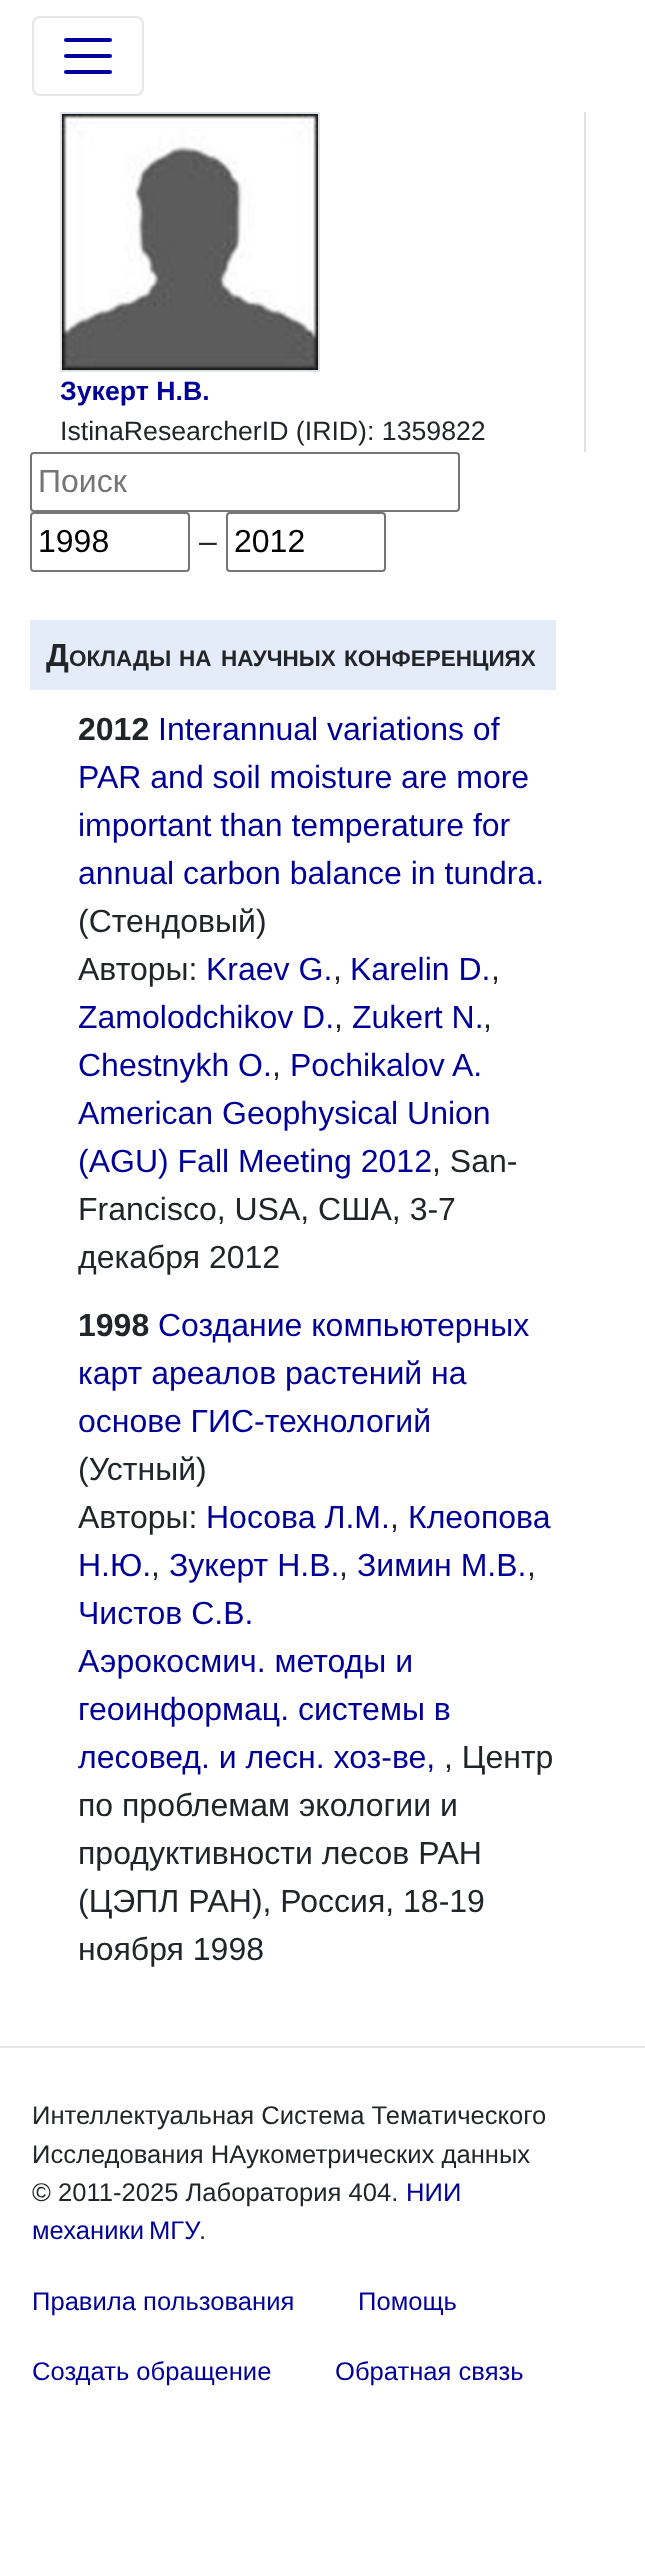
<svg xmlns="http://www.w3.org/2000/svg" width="645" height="2553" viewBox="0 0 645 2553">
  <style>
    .t1 { font: bold 26.7px Liberation Sans; fill: #009; }
    .t2 { font: 26.7px Liberation Sans; fill: #212529; }
    .t3 { font: 32px Liberation Sans; fill: #757575; }
    .t4 { font: 32px Liberation Sans; fill: #000; }
    .t5 { font: 32px Liberation Sans; fill: #212529; }
    .t6 { font: bold 32px Liberation Sans; fill: #212529; }
    .t7 { font: bold 22.5px Liberation Sans; fill: #212529; }
    .t8 { font: 32px Liberation Sans; fill: #009; }
    .t9 { font: 25.6px Liberation Sans; fill: #212529; }
    .t10 { font: 25.6px Liberation Sans; fill: #009; }
  </style>
  <rect width="100%" height="100%" fill="#fff"/>
  <rect x="33" y="17" width="110" height="78" rx="7" fill="none" stroke="#e6e6e6" stroke-width="2"/>
  <path d="M66 40H110M66 56H110M66 72H110" fill="none" stroke="#009" stroke-width="4" stroke-linecap="round"/>
  <rect x="584" y="112" width="2" height="340" fill="#dee2e6"/>
  <rect x="61" y="113" width="258" height="258" fill="none" stroke="#dee2e6" stroke-width="2"/>
  <image x="62" y="114" width="256" height="256" href="images/1.png"/>
  <text x="60" y="400" class="t1">Зукерт Н.В.</text>
  <text x="60" y="440" class="t2">IstinaResearcherID (IRID): 1359822</text>
  <rect x="31" y="453" width="428" height="58" rx="3" fill="none" stroke="#767676" stroke-width="2"/>
  <text x="38" y="492" class="t3">Поиск</text>
  <rect x="31" y="513" width="158" height="58" rx="3" fill="none" stroke="#767676" stroke-width="2"/>
  <text x="38" y="552" class="t4">1998</text>
  <text x="199" y="552" class="t5">–</text>
  <rect x="227" y="513" width="158" height="58" rx="3" fill="none" stroke="#767676" stroke-width="2"/>
  <text x="234" y="552" class="t4">2012</text>
  <rect x="30" y="620" width="526" height="70" fill="#e5ecf9"/>
  <text x="46" y="666" class="t6">Д</text>
  <text x="69" y="666" class="t7">ОКЛАДЫ</text>
  <text x="179" y="666" class="t7">НА</text>
  <text x="221" y="666" class="t7">НАУЧНЫХ</text>
  <text x="344" y="666" class="t7">КОНФЕРЕНЦИЯХ</text>
  <text x="78" y="740" class="t6">2012</text>
  <text x="158" y="740" class="t8">Interannual variations of</text>
  <text x="78" y="788" class="t8">PAR and soil moisture are more</text>
  <text x="78" y="836" class="t8">important than temperature for</text>
  <text x="78" y="884" class="t8">annual carbon balance in tundra.</text>
  <text x="78" y="932" class="t5">(Стендовый)</text>
  <text x="78" y="980" class="t5">Авторы:</text>
  <text x="206" y="980" class="t8">Kraev G.</text>
  <text x="333" y="980" class="t5">,</text>
  <text x="350" y="980" class="t8">Karelin D.</text>
  <text x="491" y="980" class="t5">,</text>
  <text x="78" y="1028" class="t8">Zamolodchikov D.</text>
  <text x="334" y="1028" class="t5">,</text>
  <text x="352" y="1028" class="t8">Zukert N.</text>
  <text x="483" y="1028" class="t5">,</text>
  <text x="78" y="1076" class="t8">Chestnykh O.</text>
  <text x="272" y="1076" class="t5">,</text>
  <text x="290" y="1076" class="t8">Pochikalov A.</text>
  <text x="78" y="1124" class="t8">American Geophysical Union</text>
  <text x="78" y="1172" class="t8">(AGU) Fall Meeting 2012</text>
  <text x="432" y="1172" class="t5">, San-</text>
  <text x="78" y="1220" class="t5">Francisco, USA, США, 3-7</text>
  <text x="78" y="1268" class="t5">декабря 2012</text>
  <text x="78" y="1336" class="t6">1998</text>
  <text x="158" y="1336" class="t8">Создание компьютерных</text>
  <text x="78" y="1384" class="t8">карт ареалов растений на</text>
  <text x="78" y="1432" class="t8">основе ГИС-технологий</text>
  <text x="78" y="1480" class="t5">(Устный)</text>
  <text x="78" y="1528" class="t5">Авторы:</text>
  <text x="206" y="1528" class="t8">Носова Л.М.</text>
  <text x="390" y="1528" class="t5">,</text>
  <text x="408" y="1528" class="t8">Клеопова</text>
  <text x="78" y="1576" class="t8">Н.Ю.</text>
  <text x="151" y="1576" class="t5">,</text>
  <text x="169" y="1576" class="t8">Зукерт Н.В.</text>
  <text x="339" y="1576" class="t5">,</text>
  <text x="357" y="1576" class="t8">Зимин М.В.</text>
  <text x="527" y="1576" class="t5">,</text>
  <text x="78" y="1624" class="t8">Чистов С.В.</text>
  <text x="78" y="1672" class="t8">Аэрокосмич. методы и</text>
  <text x="78" y="1720" class="t8">геоинформац. системы в</text>
  <text x="78" y="1768" class="t8">лесовед. и лесн. хоз-ве,</text>
  <text x="444" y="1768" class="t5">, Центр</text>
  <text x="78" y="1816" class="t5">по проблемам экологии и</text>
  <text x="78" y="1864" class="t5">продуктивности лесов РАН</text>
  <text x="78" y="1912" class="t5">(ЦЭПЛ РАН), Россия, 18-19</text>
  <text x="78" y="1960" class="t5">ноября 1998</text>
  <rect x="0" y="2046" width="645" height="2" fill="#e6e6e6"/>
  <text x="32" y="2124" class="t9">Интеллектуальная Система Тематического</text>
  <text x="32" y="2163" class="t9">Исследования НАукометрических данных</text>
  <text x="32" y="2201" class="t9">© 2011-2025 Лаборатория 404.</text>
  <text x="406" y="2201" class="t10">НИИ</text>
  <text x="32" y="2239" word-spacing="-2" class="t10">механики МГУ</text>
  <text x="199" y="2239" class="t9">.</text>
  <text x="32" y="2310" class="t10">Правила пользования</text>
  <text x="358" y="2310" class="t10">Помощь</text>
  <text x="32" y="2380" class="t10">Создать обращение</text>
  <text x="335" y="2380" class="t10">Обратная связь</text>
</svg>
